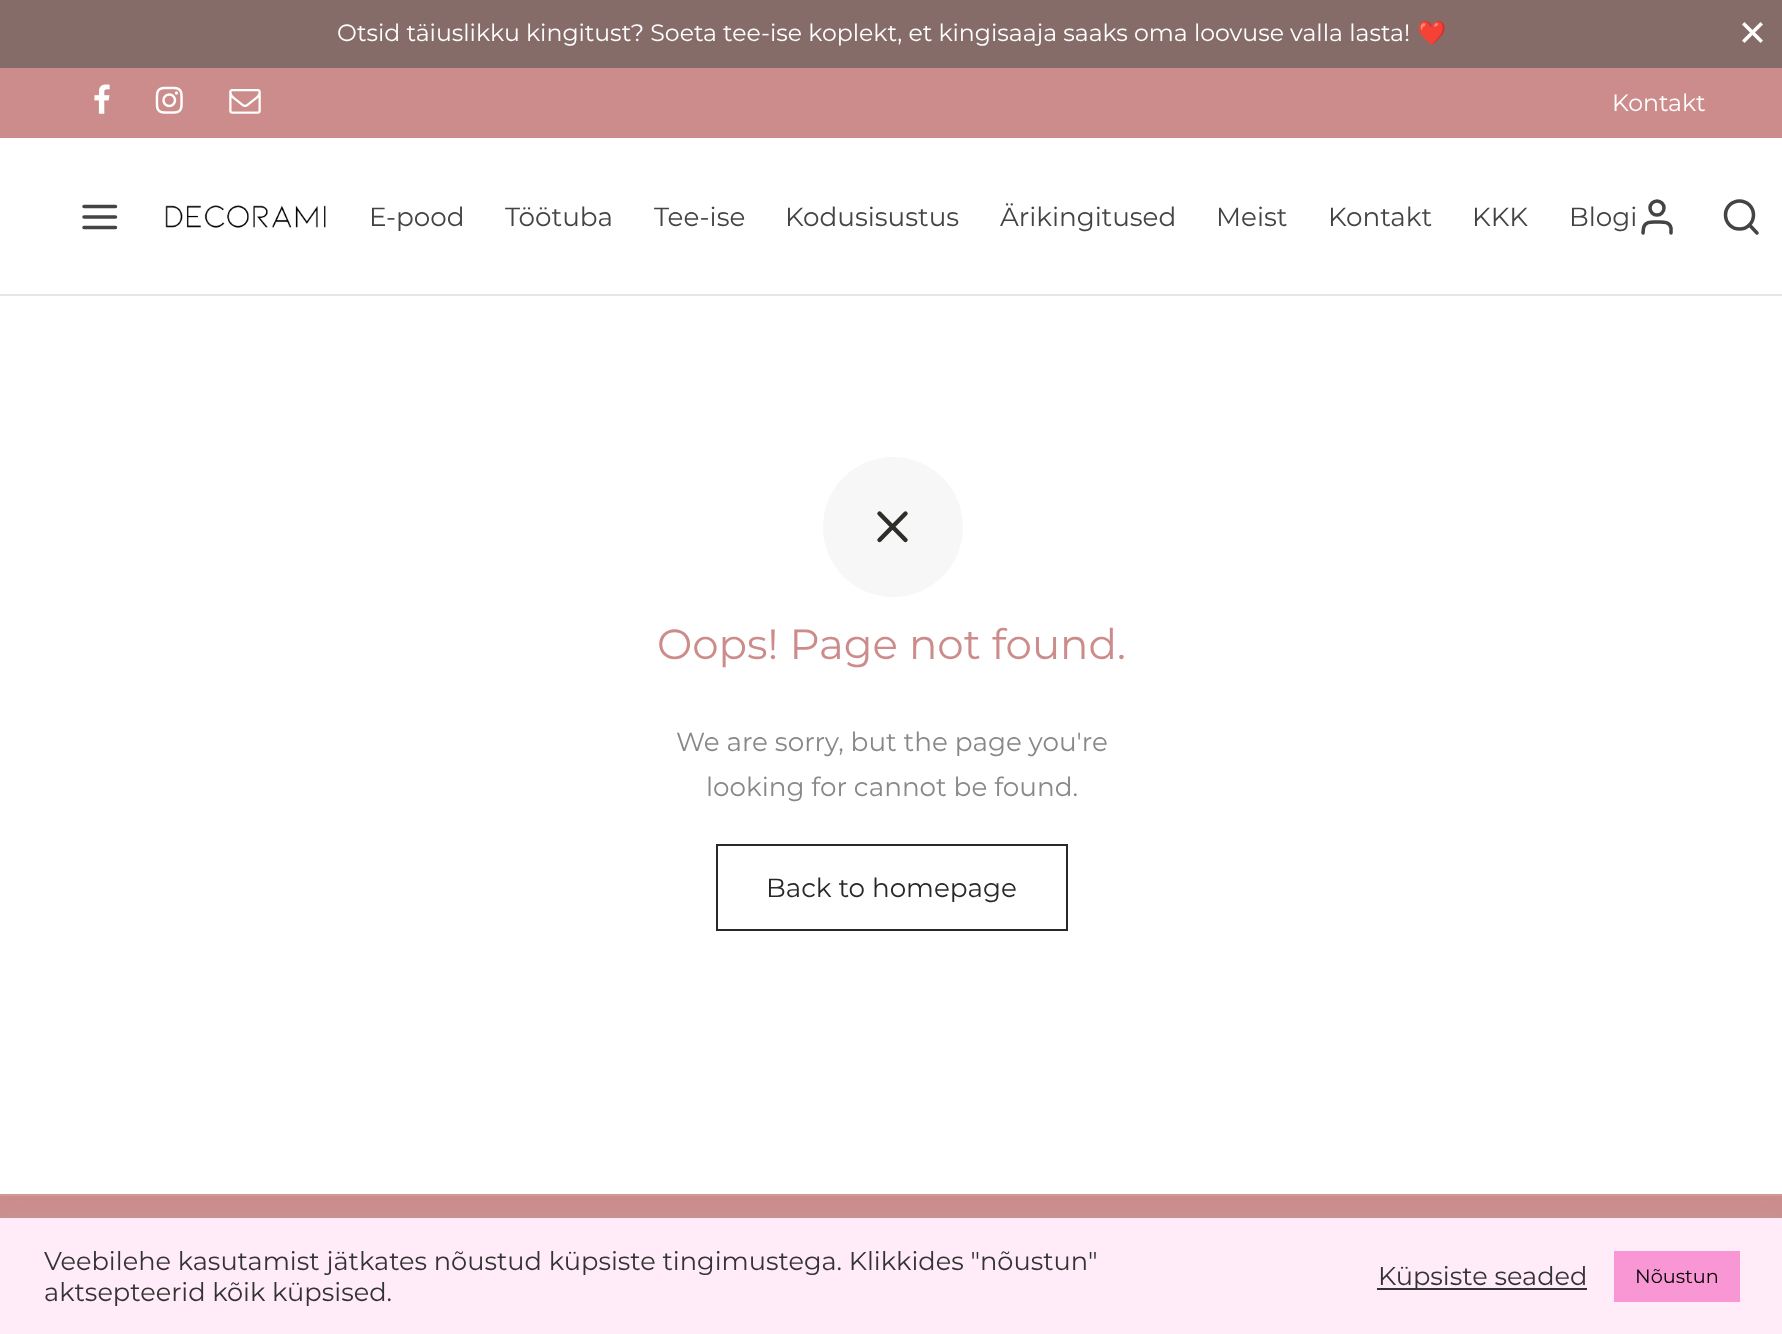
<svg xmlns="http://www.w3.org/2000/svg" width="1782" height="1334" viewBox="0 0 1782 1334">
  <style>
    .t1 { font: 100 23.6px Montserrat; fill: #fff; }
    .t2 { font: 23.6px Noto Color Emoji; fill: #fff; }
    .t3 { font: 100 26.25px Montserrat; fill: #444; }
    .t4 { font: 100 42px Montserrat; fill: #cd8c8c; }
    .t5 { font: 100 26.25px Montserrat; fill: #888; }
    .t6 { font: 100 26.25px Montserrat; fill: #282828; }
    .t7 { font: 100 25.65px Montserrat; fill: #333; }
    .t8 { font: 100 19.25px Montserrat; fill: #000; }
  </style>
  <rect width="100%" height="100%" fill="#fff"/>
  <rect x="0" y="0" width="1782" height="68" fill="#866c69"/>
  <text x="337" y="41" class="t1">Otsid täiuslikku kingitust? Soeta tee-ise koplekt, et kingisaaja saaks oma loovuse valla lasta!</text>
  <text x="1417" y="41" class="t2">❤️</text>
  <path d="M1744.5 22L1763 40.5L1760.5 43L1742 24.5Z" fill="#fff"/>
  <path d="M1742 40.5L1760.5 22L1763 24.5L1744.5 43Z" fill="#fff"/>
  <rect x="0" y="68" width="1782" height="70" fill="#cd8c8c"/>
  <image x="94" y="84" width="16" height="30" href="images/1.png"/>
  <image x="155" y="86" width="28" height="28" href="images/2.png"/>
  <image x="229" y="89" width="32" height="25" href="images/3.png"/>
  <text x="1612" y="111" class="t1">Kontakt</text>
  <path d="M84 217H115.5M84 206.5H115.5M84 227.5H115.5" fill="none" stroke="#444" stroke-width="3.5" stroke-linecap="round" stroke-linejoin="round"/>
  <image x="165" y="205" width="161" height="23" href="images/4.png"/>
  <text x="369" y="226" class="t3">E-pood</text>
  <text x="505" y="226" class="t3">Töötuba</text>
  <text x="654" y="226" class="t3">Tee-ise</text>
  <text x="785" y="226" class="t3">Kodusisustus</text>
  <text x="1000" y="226" class="t3">Ärikingitused</text>
  <text x="1216" y="226" class="t3">Meist</text>
  <text x="1328" y="226" class="t3">Kontakt</text>
  <text x="1472" y="226" class="t3">KKK</text>
  <text x="1569" y="226" class="t3">Blogi</text>
  <path d="M1671 233V228C1669.5 221 1662.5 222 1657 222C1652 222 1645 221 1643.5 228L1643 233" fill="none" stroke="#444" stroke-width="3.5" stroke-linecap="round" stroke-linejoin="round"/>
  <circle cx="1657" cy="208" r="7" fill="none" stroke="#444" stroke-width="3.5"/>
  <circle cx="1739.5" cy="215" r="14" fill="none" stroke="#444" stroke-width="3.5"/>
  <path d="M1757 233L1749.5 225" fill="none" stroke="#444" stroke-width="3.5" stroke-linecap="round" stroke-linejoin="round"/>
  <rect x="0" y="294" width="1782" height="2" fill="#e6e6e6"/>
  <circle cx="893" cy="527" r="70" fill="#f7f7f7"/>
  <path d="M905.5 513.5L879.5 540M879.5 513.5L905.5 540" fill="none" stroke="#2f2d2a" stroke-width="4.4" stroke-linecap="round" stroke-linejoin="round"/>
  <text x="657" y="659" class="t4">Oops! Page not found.</text>
  <text x="676" y="751" class="t5">We are sorry, but the page you're</text>
  <text x="706" y="796" class="t5">looking for cannot be found.</text>
  <rect x="717" y="845" width="350" height="85" fill="none" stroke="#282828" stroke-width="2"/>
  <text x="766" y="897" class="t6">Back to homepage</text>
  <rect x="0" y="1196" width="1782" height="22" fill="#cd8c8c"/>
  <rect x="0" y="1194" width="1782" height="2" fill="#d29898"/>
  <rect x="0" y="1216" width="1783" height="118" fill="#acabab4d" filter="blur(9px)"/>
  <rect x="0" y="1218" width="1782" height="116" fill="#ffecf8"/>
  <text x="44" y="1270" class="t7">Veebilehe kasutamist jätkates nõustud küpsiste tingimustega. Klikkides "nõustun"</text>
  <text x="44" y="1301" class="t7">aktsepteerid kõik küpsised.</text>
  <rect x="1377" y="1288" width="210" height="2" fill="#333"/>
  <text x="1378" y="1285" class="t7">Küpsiste seaded</text>
  <rect x="1614" y="1251" width="126" height="51" fill="#f897d4"/>
  <text x="1635" y="1283" class="t8">Nõustun</text>
</svg>
